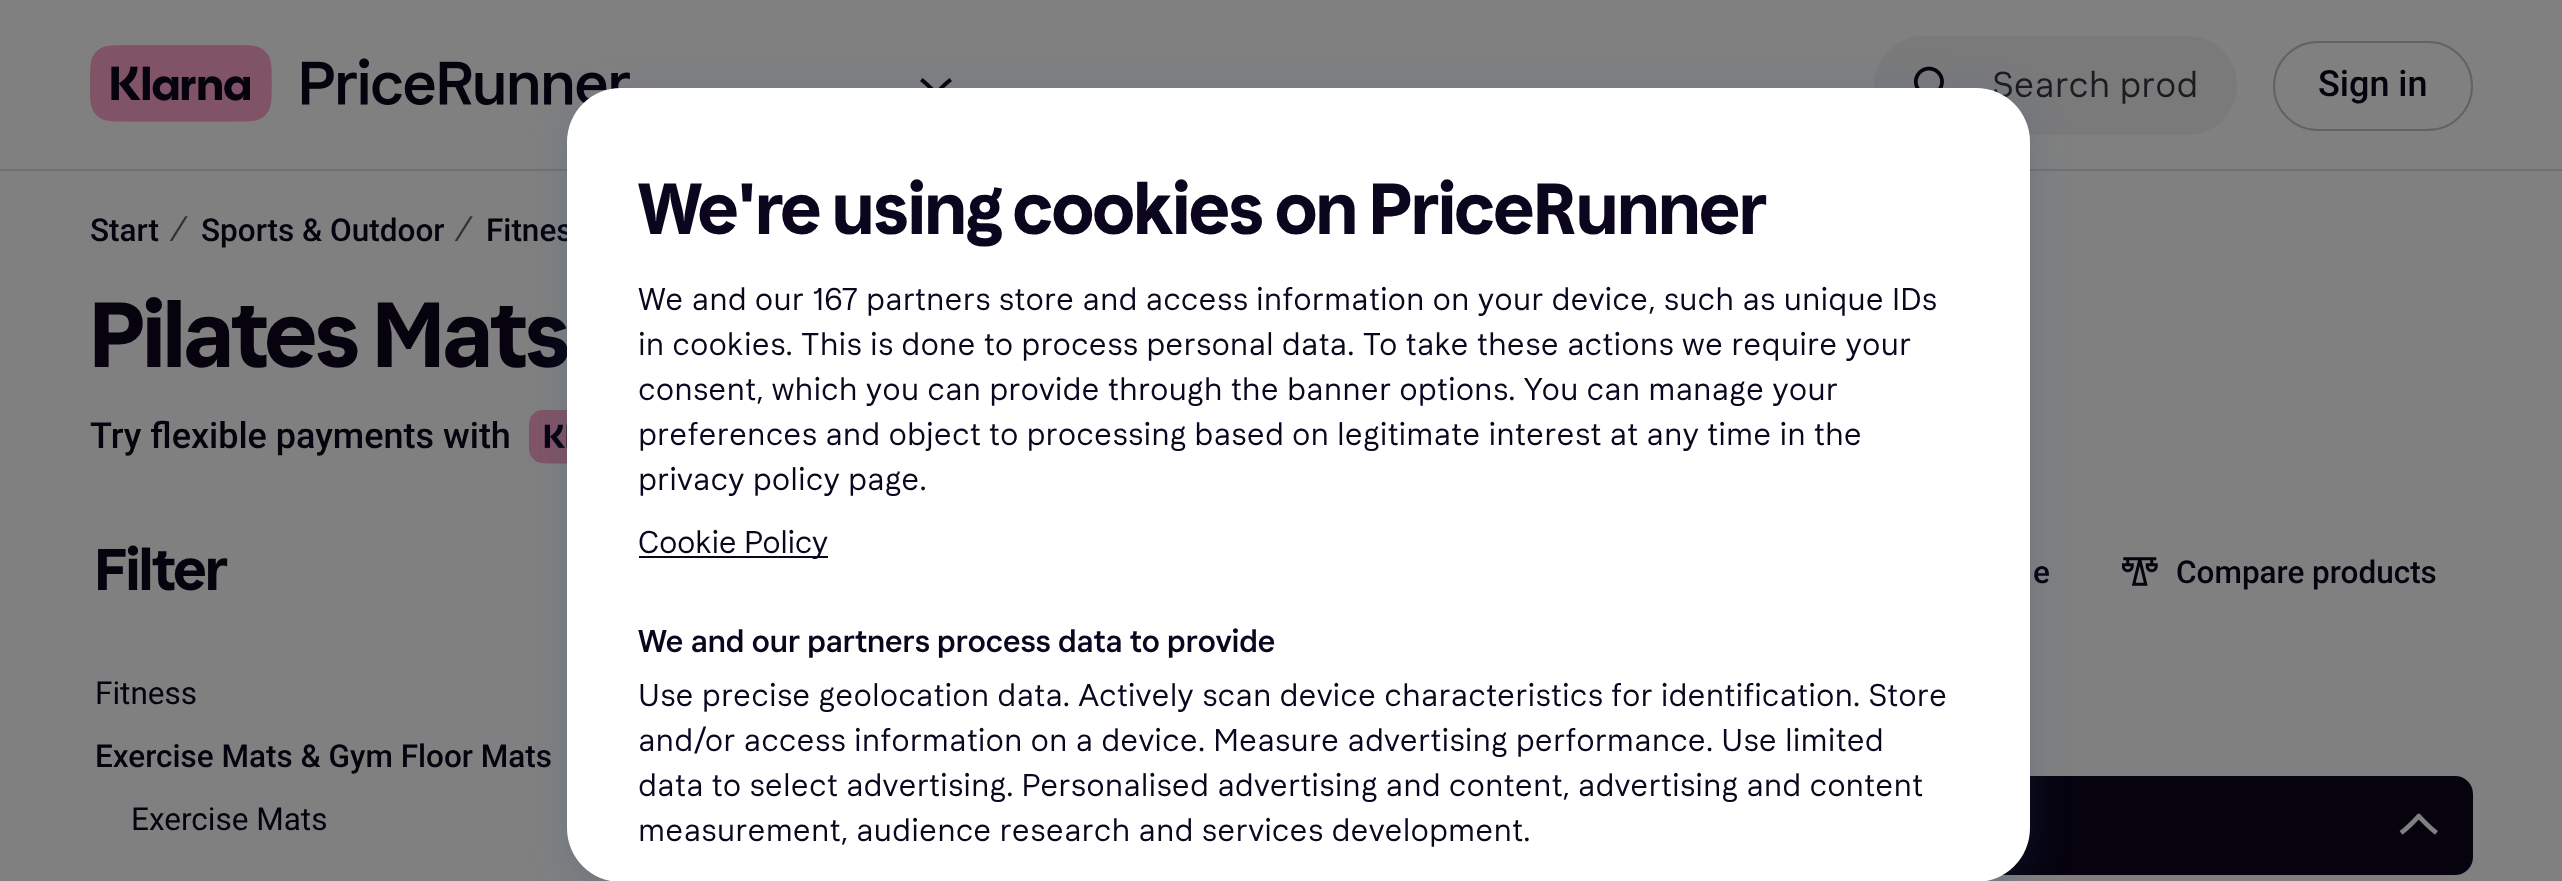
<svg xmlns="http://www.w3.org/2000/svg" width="2562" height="881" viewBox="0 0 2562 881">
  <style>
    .t1 { font: 36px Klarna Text; fill: #1c1b20; }
    .t2 { font: 500 36px Roboto; fill: #06030f; }
    .t3 { font: 500 31.5px Roboto; fill: #06030f; }
    .t4 { font: 36px Liberation Sans; fill: #313037; }
    .t5 { font: bold 92.25px Klarna Text; letter-spacing: -0.9px; fill: #06030f; }
    .t6 { font: bold 58.5px Klarna Text; letter-spacing: -0.5px; fill: #06030f; }
    .t7 { font: 31.5px Roboto; fill: #06030f; }
    .t8 { font: bold 72px Klarna Text; fill: #0b051d; }
    .t9 { font: 31.5px Klarna Text; fill: #0b051d; }
    .t10 { font: 31.5px Klarna Text; letter-spacing: -0.5px; fill: #0b051d; }
    .t11 { font: 500 31.5px Klarna Text; fill: #0b051d; }
  </style>
  <rect width="100%" height="100%" fill="#808080"/>
  <rect x="0" y="169" width="2562" height="2" fill="#717174"/>
  <image x="90" y="45" width="540" height="77" href="images/1.png"/>
  <image x="920" y="78" width="32" height="10" href="images/2.png"/>
  <rect x="1874" y="36" width="363" height="99" rx="49.5" fill="#7a7a7b"/>
  <image x="1913" y="66" width="31" height="22" href="images/3.png"/>
  <text x="1992" y="97" class="t1">Search prod</text>
  <rect x="2274" y="42" width="198" height="88" rx="44" fill="none" stroke="#626265" stroke-width="2"/>
  <text x="2318" y="96" class="t2">Sign in</text>
  <text x="90" y="241" class="t3">Start</text>
  <text x="177" y="241" class="t4">∕</text>
  <text x="201" y="241" class="t3">Sports &amp; Outdoor</text>
  <text x="462" y="241" class="t4">∕</text>
  <text x="486" y="241" class="t3">Fitnes</text>
  <text x="90" y="367" class="t5">Pilates Mats</text>
  <text x="90" y="448" class="t2">Try flexible payments with</text>
  <image x="529" y="410" width="38" height="54" href="images/4.png"/>
  <text x="95" y="590" class="t6">Filter</text>
  <text x="95" y="704" class="t7">Fitness</text>
  <text x="95" y="767" class="t3">Exercise Mats &amp; Gym Floor Mats</text>
  <text x="131" y="830" class="t7">Exercise Mats</text>
  <text x="2033" y="583" class="t3">e</text>
  <image x="2122" y="557" width="36" height="29" href="images/5.png"/>
  <text x="2176" y="583" class="t3">Compare products</text>
  <rect x="1663" y="776" width="810" height="99" rx="18" fill="#06030f"/>
  <image x="2399" y="813" width="39" height="22" href="images/6.png"/>
  <rect x="567" y="97" width="1463" height="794" rx="54" fill="#204c8833" filter="blur(20px)"/>
  <rect x="567" y="88" width="1463" height="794" rx="54" fill="#fff"/>
  <text x="638" y="234" class="t8">We're using cookies on PriceRunner</text>
  <text x="638" y="310" class="t9">We and our 167 partners store and access information on your device, such as unique IDs</text>
  <text x="638" y="355" class="t9">in cookies. This is done to process personal data. To take these actions we require your</text>
  <text x="638" y="400" class="t9">consent, which you can provide through the banner options. You can manage your</text>
  <text x="638" y="445" class="t9">preferences and object to processing based on legitimate interest at any time in the</text>
  <text x="638" y="490" class="t9">privacy policy page.</text>
  <rect x="639" y="556" width="189" height="2" fill="#0b051d"/>
  <text x="638" y="553" class="t10">Cookie Policy</text>
  <text x="638" y="652" class="t11">We and our partners process data to provide</text>
  <text x="638" y="706" class="t9">Use precise geolocation data. Actively scan device characteristics for identification. Store</text>
  <text x="638" y="751" class="t9">and/or access information on a device. Measure advertising performance. Use limited</text>
  <text x="638" y="796" class="t9">data to select advertising. Personalised advertising and content, advertising and content</text>
  <text x="638" y="841" class="t9">measurement, audience research and services development.</text>
</svg>
